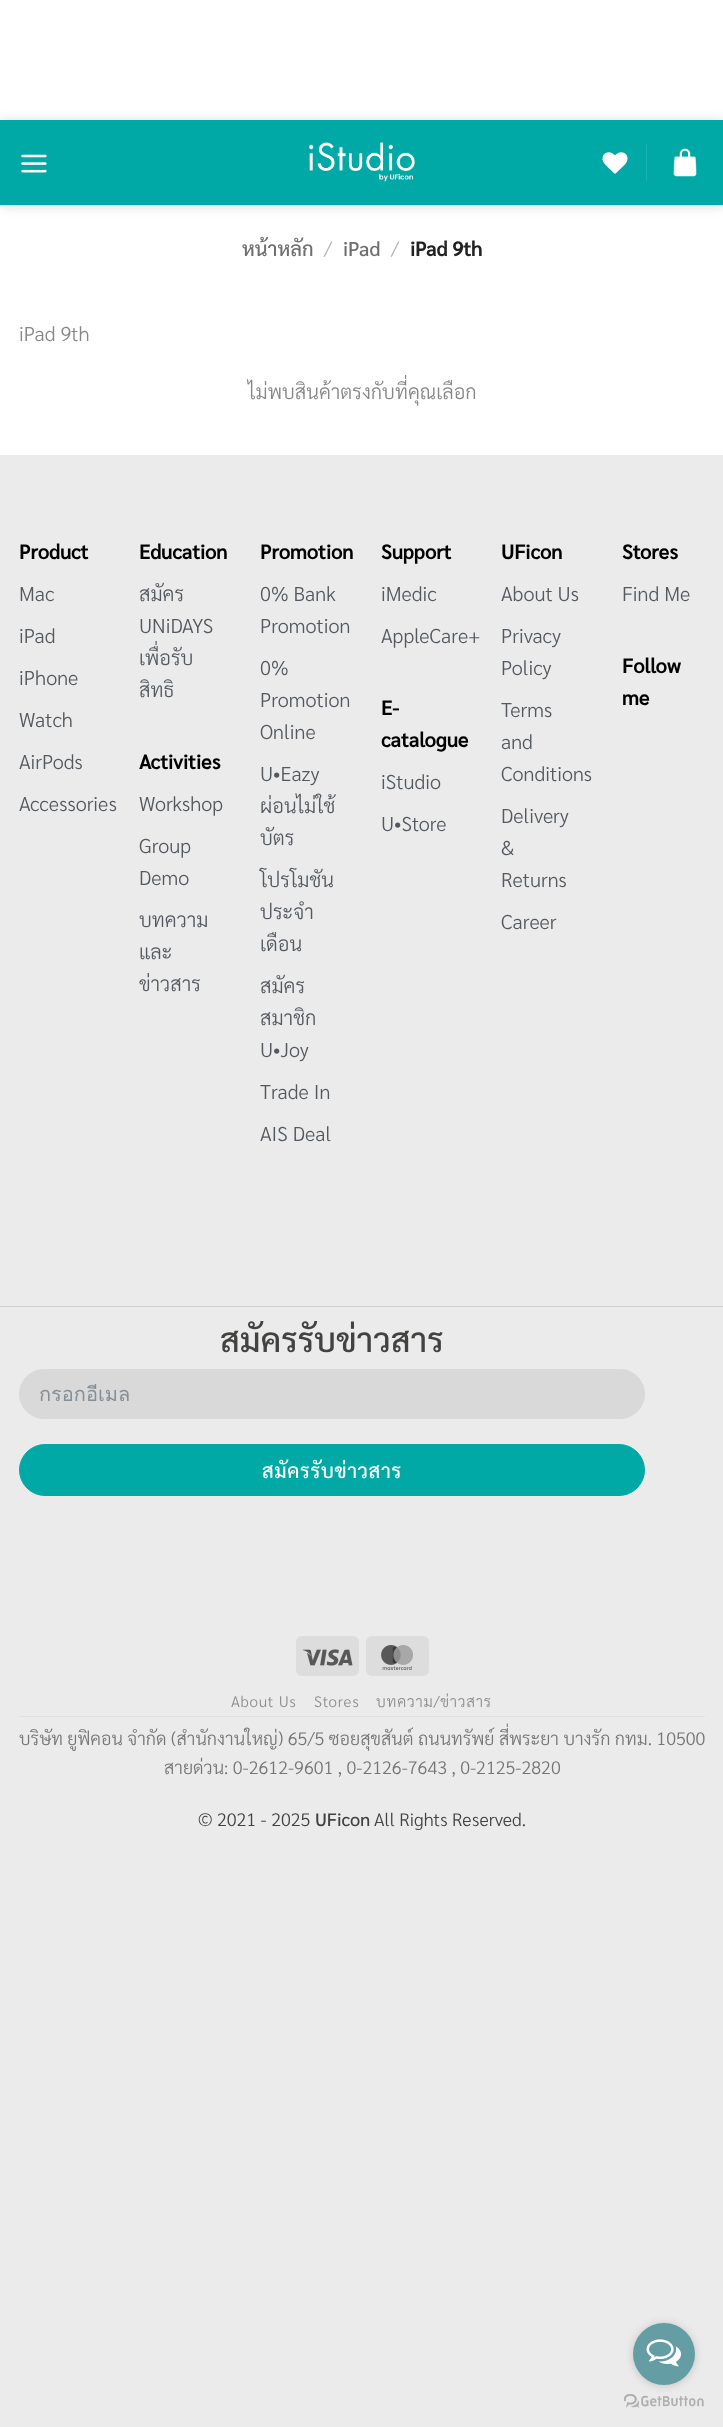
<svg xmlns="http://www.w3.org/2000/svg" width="723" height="2427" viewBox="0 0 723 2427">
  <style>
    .t1 { font: 500 20px Sarabun; fill: #6e6e6e; }
    .t2 { font: 300 20px Sarabun; fill: #b2b2b2; }
    .t3 { font: bold 20px Sarabun; fill: #222; }
    .t4 { font: 300 20px Sarabun; fill: #888585; }
    .t5 { font: bold 20px Sarabun; fill: #000; }
    .t6 { font: 300 20px Sarabun; fill: #54595f; }
    .t7 { font: 500 33.75px Sarabun; fill: #424241; }
    .t8 { font: 20px Loma; fill: #868e96; }
    .t9 { font: 500 20px Sarabun; letter-spacing: 0.6px; fill: #fff; }
    .t10 { font: 300 15.25px Sarabun; letter-spacing: 0.75px; fill: #8d8d8d; }
    .t11 { font: 300 18px Sarabun; fill: #767676; }
    .t12 { font: 300 18px Sarabun; fill: #424241; }
    .t13 { font: 500 18px Sarabun; fill: #424241; }
  </style>
  <rect width="100%" height="100%" fill="#ebebeb"/>
  <rect x="0" y="0" width="723" height="455" fill="#fff"/>
  <rect x="1" y="121" width="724" height="85" fill="#00000026" filter="blur(6px)"/>
  <rect x="0" y="120" width="723" height="85" fill="#00a9a5"/>
  <image x="21" y="154" width="26" height="19" href="images/1.png"/>
  <image x="309" y="142" width="106" height="40" href="images/2.png"/>
  <image x="602" y="152" width="26" height="22" href="images/3.png"/>
  <rect x="646" y="144" width="1" height="37" fill="#1ab2ae"/>
  <image x="673" y="148" width="24" height="29" href="images/4.png"/>
  <text x="242" y="256" class="t1">หน้าหลัก</text>
  <text x="324" y="256" class="t2">/</text>
  <text x="343" y="256" class="t1">iPad</text>
  <text x="391" y="256" class="t2">/</text>
  <text x="410" y="256" class="t3">iPad 9th</text>
  <text x="19" y="341" class="t4">iPad 9th</text>
  <text x="248" y="399" class="t4">ไม่พบสินค้าตรงกับที่คุณเลือก</text>
  <text x="19" y="559" class="t5">Product</text>
  <text x="19" y="601" class="t6">Mac</text>
  <text x="19" y="643" class="t6">iPad</text>
  <text x="19" y="685" class="t6">iPhone</text>
  <text x="19" y="727" class="t6">Watch</text>
  <text x="19" y="769" class="t6">AirPods</text>
  <text x="19" y="811" class="t6">Accessories</text>
  <text x="139" y="559" class="t5">Education</text>
  <text x="139" y="601" class="t6">สมัคร</text>
  <text x="139" y="633" class="t6">UNiDAYS</text>
  <text x="139" y="665" class="t6">เพื่อรับ</text>
  <text x="139" y="697" class="t6">สิทธิ</text>
  <text x="139" y="769" class="t5">Activities</text>
  <text x="139" y="811" class="t6">Workshop</text>
  <text x="139" y="853" class="t6">Group</text>
  <text x="139" y="885" class="t6">Demo</text>
  <text x="139" y="927" class="t6">บทความ</text>
  <text x="139" y="959" class="t6">และ</text>
  <text x="139" y="991" class="t6">ข่าวสาร</text>
  <text x="260" y="559" class="t5">Promotion</text>
  <text x="260" y="601" class="t6">0% Bank</text>
  <text x="260" y="633" class="t6">Promotion</text>
  <text x="260" y="675" class="t6">0%</text>
  <text x="260" y="707" class="t6">Promotion</text>
  <text x="260" y="739" class="t6">Online</text>
  <text x="260" y="781" class="t6">U•Eazy</text>
  <text x="260" y="813" class="t6">ผ่อนไม่ใช้</text>
  <text x="260" y="845" class="t6">บัตร</text>
  <text x="260" y="887" class="t6">โปรโมชัน</text>
  <text x="260" y="919" class="t6">ประจำ</text>
  <text x="260" y="951" class="t6">เดือน</text>
  <text x="260" y="993" class="t6">สมัคร</text>
  <text x="260" y="1025" class="t6">สมาชิก</text>
  <text x="260" y="1057" class="t6">U•Joy</text>
  <text x="260" y="1099" class="t6">Trade In</text>
  <text x="260" y="1141" class="t6">AIS Deal</text>
  <text x="381" y="559" class="t5">Support</text>
  <text x="381" y="601" class="t6">iMedic</text>
  <text x="381" y="643" class="t6">AppleCare+</text>
  <text x="381" y="715" class="t5">E-</text>
  <text x="381" y="747" class="t5">catalogue</text>
  <text x="381" y="789" class="t6">iStudio</text>
  <text x="381" y="831" class="t6">U•Store</text>
  <text x="501" y="559" class="t5">UFicon</text>
  <text x="501" y="601" class="t6">About Us</text>
  <text x="501" y="643" class="t6">Privacy</text>
  <text x="501" y="675" class="t6">Policy</text>
  <text x="501" y="717" class="t6">Terms</text>
  <text x="501" y="749" class="t6">and</text>
  <text x="501" y="781" class="t6">Conditions</text>
  <text x="501" y="823" class="t6">Delivery</text>
  <text x="501" y="855" class="t6">&amp;</text>
  <text x="501" y="887" class="t6">Returns</text>
  <text x="501" y="929" class="t6">Career</text>
  <text x="622" y="559" class="t5">Stores</text>
  <text x="622" y="601" class="t6">Find Me</text>
  <text x="622" y="673" class="t5">Follow</text>
  <text x="622" y="705" class="t5">me</text>
  <rect x="0" y="1306" width="723" height="1" fill="#d0d0d0"/>
  <text x="220" y="1352" class="t7">สมัครรับข่าวสาร</text>
  <rect x="19.5" y="1369.5" width="625" height="49" rx="24.5" fill="#d9d9d9" stroke="#d9d9d9"/>
  <text x="39" y="1401" class="t8">กรอกอีเมล</text>
  <rect x="19.5" y="1444.5" width="625" height="51" rx="25.5" fill="#00a9a5" stroke="#00a9a5"/>
  <text x="262" y="1478" class="t9">สมัครรับข่าวสาร</text>
  <rect x="296" y="1636" width="63" height="40" rx="6" fill="#ddd"/>
  <image x="303" y="1649" width="50" height="17" href="images/5.png"/>
  <rect x="366" y="1636" width="63" height="40" rx="6" fill="#ddd"/>
  <image x="381" y="1645" width="32" height="25" href="images/6.png"/>
  <rect x="19" y="1716" width="686" height="1" fill="#e0e0e0"/>
  <text x="231" y="1707" class="t10">About Us</text>
  <text x="314" y="1707" class="t10">Stores</text>
  <text x="376" y="1707" class="t10">บทความ/ข่าวสาร</text>
  <text x="19" y="1745" class="t11">บริษัท ยูฟิคอน จํากัด (สํานักงานใหญ่) 65/5 ซอยสุขสันต์ ถนนทรัพย์ สี่พระยา บางรัก กทม. 10500</text>
  <text x="164" y="1774" class="t11">สายด่วน: 0-2612-9601 , 0-2126-7643 , 0-2125-2820</text>
  <text x="198" y="1826" class="t12">© 2021 - 2025</text>
  <text x="315" y="1826" class="t13">UFicon</text>
  <text x="374" y="1826" class="t12">All Rights Reserved.</text>
  <image x="624" y="2394" width="80" height="14" href="images/8.png"/>
  <rect x="633" y="2324" width="62" height="62" rx="31" fill="#88888866" filter="blur(4.5px)"/>
  <circle cx="664" cy="2354" r="31" fill="#649da4"/>
  <image x="646" y="2339" width="35" height="28" href="images/7.png"/>
</svg>
